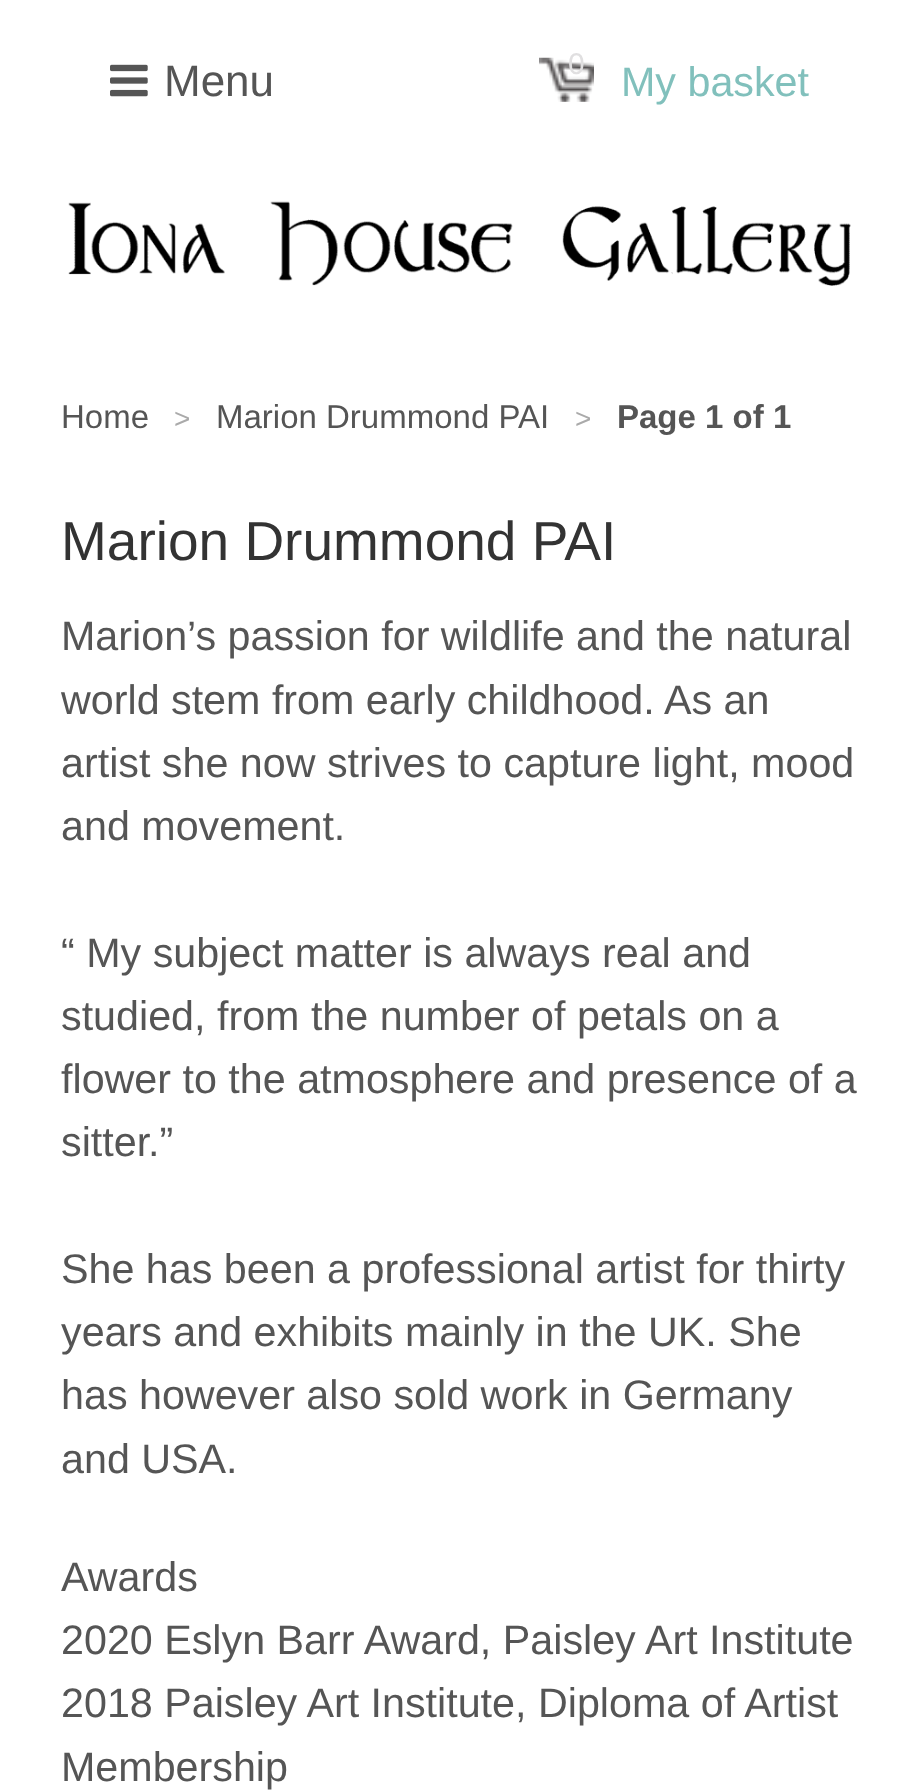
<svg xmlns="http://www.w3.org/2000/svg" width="917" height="1792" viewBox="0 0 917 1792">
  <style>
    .t1 { font: 44px Liberation Sans; fill: #555; }
    .t2 { font: 30px Liberation Sans; fill: #e0dfe0; }
    .t3 { font: 41.25px Liberation Sans; fill: #81c0bc; }
    .t4 { font: 33px Liberation Sans; fill: #555; }
    .t5 { font: 28px Liberation Sans; fill: #aaa; }
    .t6 { font: bold 33px Liberation Sans; fill: #555; }
    .t7 { font: 55px Liberation Sans; fill: #333; }
    .t8 { font: 41.25px Liberation Sans; fill: #555; }
  </style>
  <rect width="100%" height="100%" fill="#fff"/>
  <image x="110" y="64" width="38" height="33" href="images/1.png"/>
  <text x="164" y="96" class="t1">Menu</text>
  <image x="539" y="57" width="55" height="45" href="images/2.png"/>
  <text x="568" y="74" class="t2">0</text>
  <text x="621" y="96" class="t3">My basket</text>
  <image x="68" y="201" width="783" height="85" href="images/3.png"/>
  <text x="61" y="428" class="t4">Home</text>
  <text x="174" y="428" class="t5">&gt;</text>
  <text x="216" y="428" class="t4">Marion Drummond PAI</text>
  <text x="575" y="428" class="t5">&gt;</text>
  <text x="617" y="428" class="t6">Page 1 of 1</text>
  <text x="61" y="560" class="t7">Marion Drummond PAI</text>
  <text x="61" y="650" class="t8">Marion’s passion for wildlife and the natural</text>
  <text x="61" y="714" class="t8">world stem from early childhood. As an</text>
  <text x="61" y="777" class="t8">artist she now strives to capture light, mood</text>
  <text x="61" y="840" class="t8">and movement.</text>
  <text x="61" y="967" class="t8">“ My subject matter is always real and</text>
  <text x="61" y="1030" class="t8">studied, from the number of petals on a</text>
  <text x="61" y="1093" class="t8">flower to the atmosphere and presence of a</text>
  <text x="61" y="1156" class="t8">sitter.”</text>
  <text x="61" y="1283" class="t8">She has been a professional artist for thirty</text>
  <text x="61" y="1346" class="t8">years and exhibits mainly in the UK. She</text>
  <text x="61" y="1409" class="t8">has however also sold work in Germany</text>
  <text x="61" y="1473" class="t8">and USA.</text>
  <text x="61" y="1591" class="t8">Awards</text>
  <text x="61" y="1654" class="t8">2020 Eslyn Barr Award, Paisley Art Institute</text>
  <text x="61" y="1717" class="t8">2018 Paisley Art Institute, Diploma of Artist</text>
  <text x="61" y="1781" class="t8">Membership</text>
</svg>
